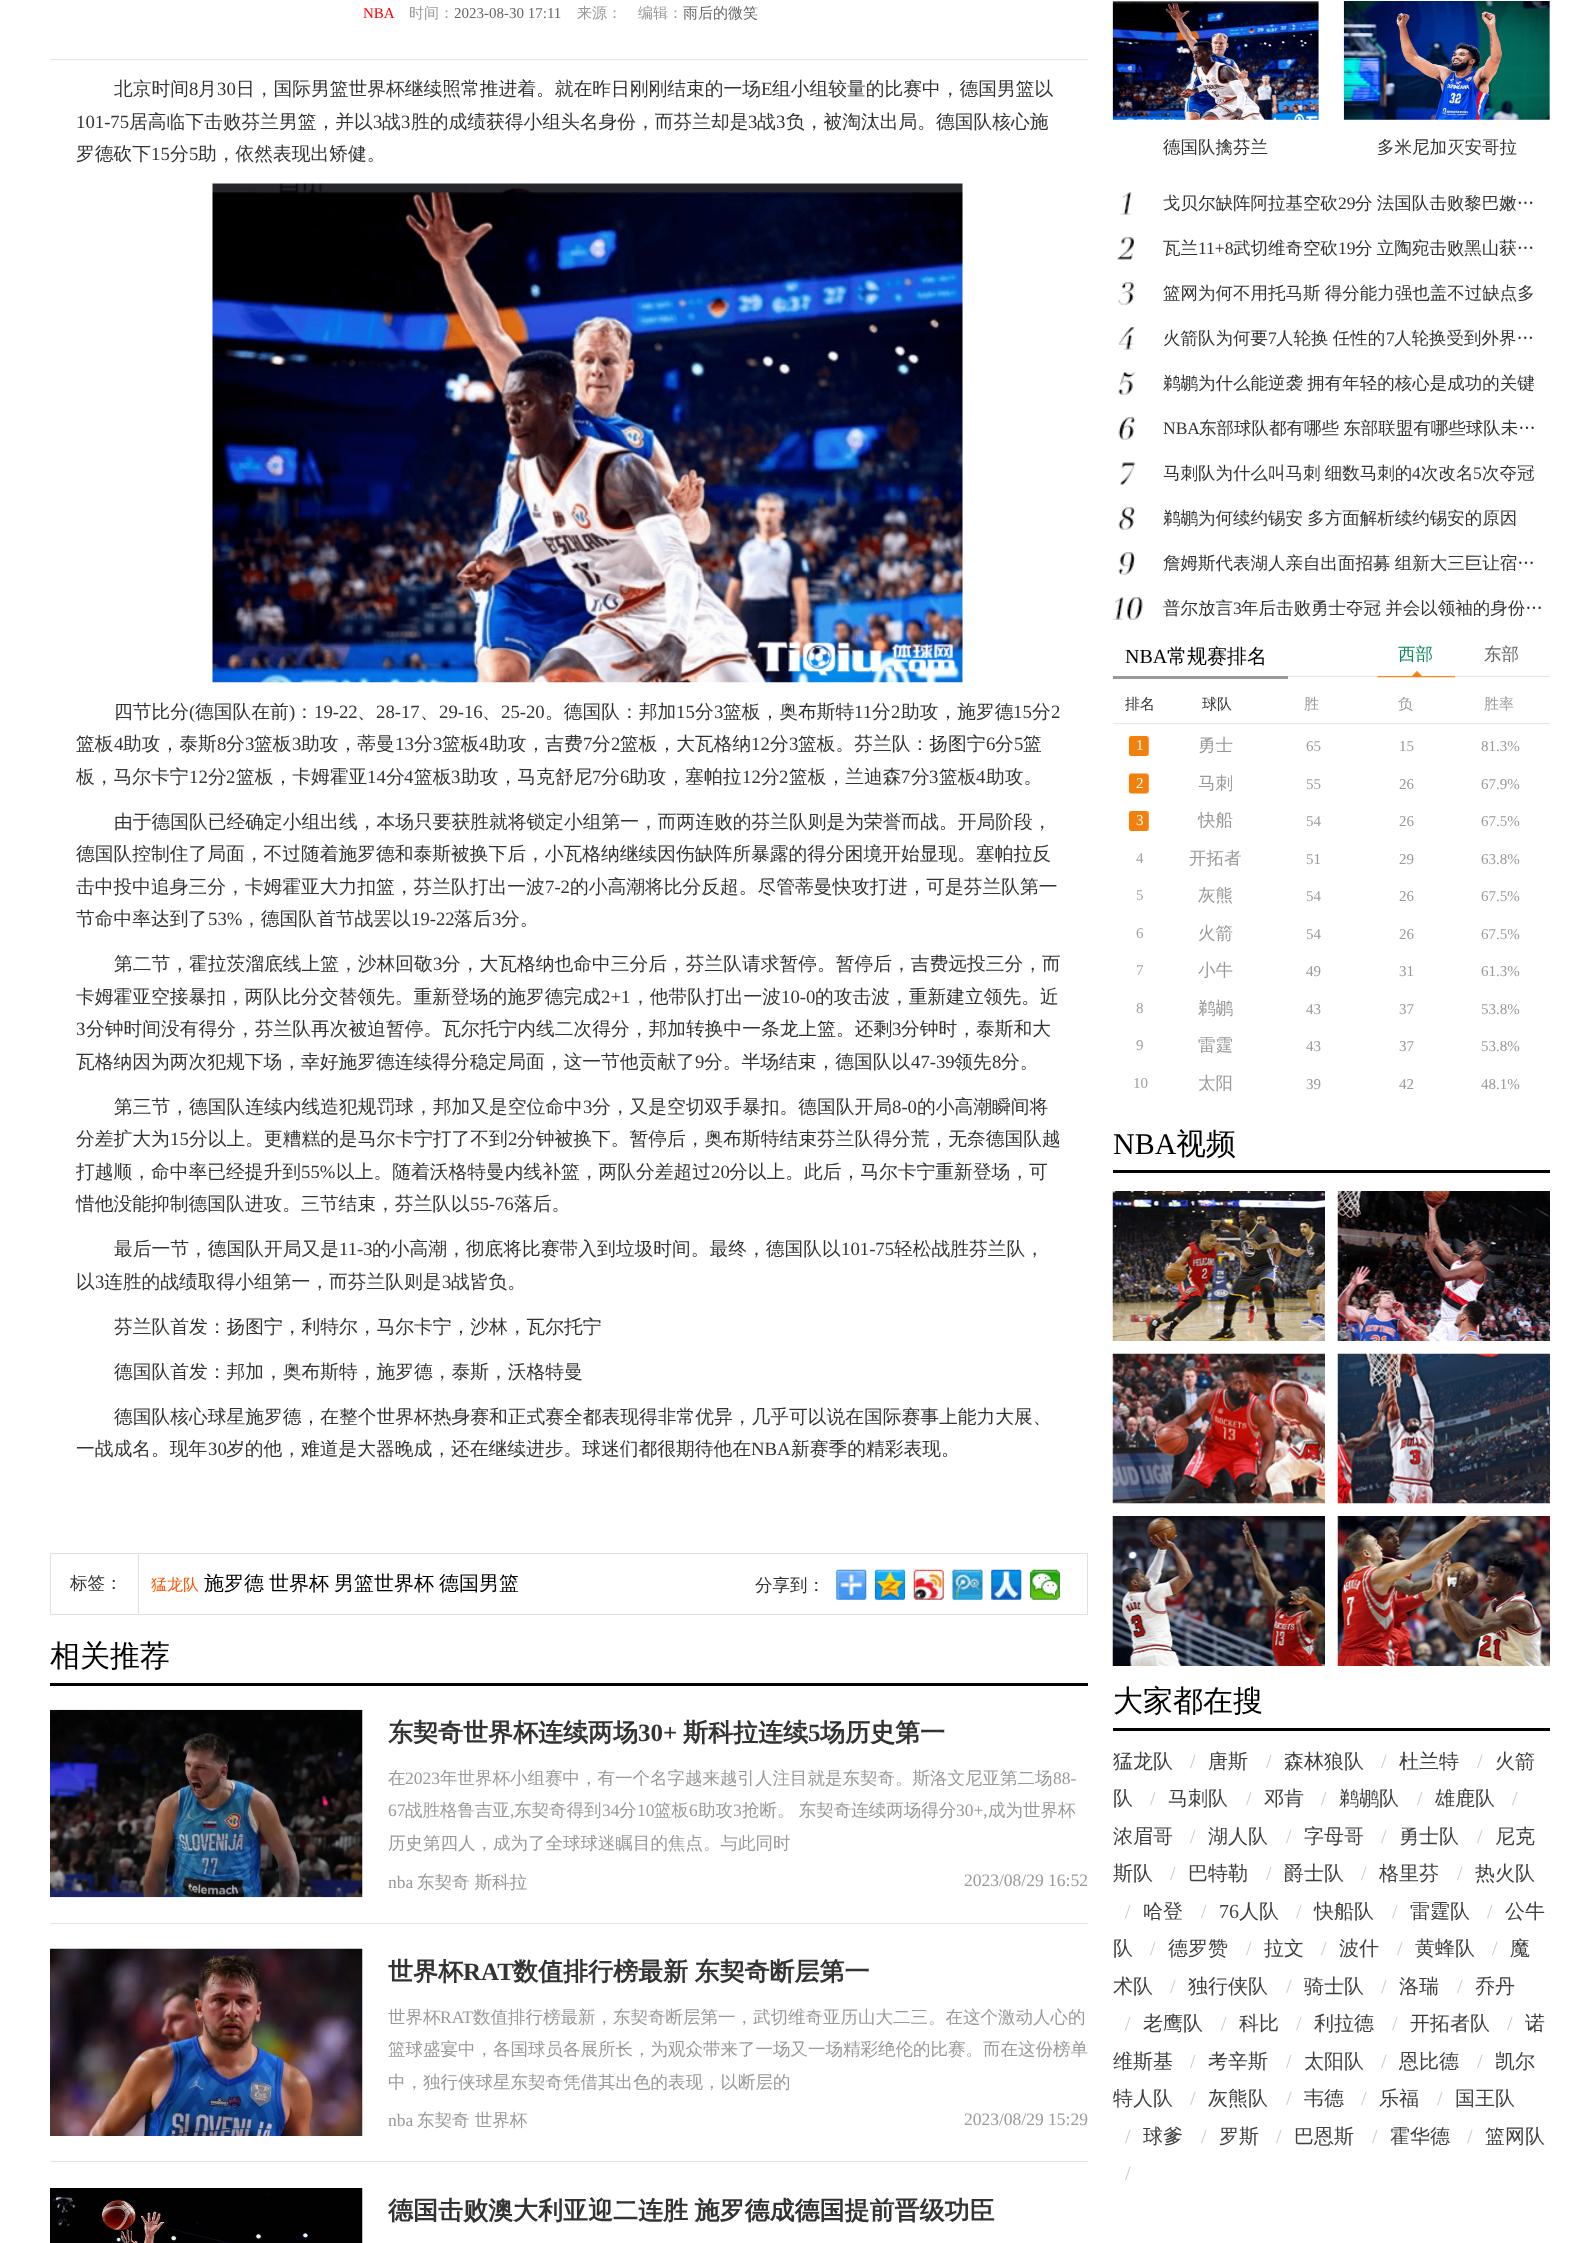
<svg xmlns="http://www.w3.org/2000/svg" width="1574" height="2243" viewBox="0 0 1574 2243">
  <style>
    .t1 { font: 15px Liberation Serif; fill: #f00; }
    .t2 { font: 500 15px WenQuanYi Zen Hei; fill: #999; }
    .t3 { font: 15px Liberation Serif; fill: #666; }
    .t4 { font: 500 15px WenQuanYi Zen Hei; fill: #666; }
    .t5 { font: 500 18.75px WenQuanYi Zen Hei; fill: #333; }
    .t6 { font: 18.75px Liberation Serif; fill: #333; }
    .t7 { font: 500 17.5px WenQuanYi Zen Hei; fill: #333; }
    .t8 { font: 500 16px WenQuanYi Zen Hei; fill: #f50; }
    .t9 { font: 500 20px WenQuanYi Zen Hei; fill: #000; }
    .t10 { font: 500 30px WenQuanYi Zen Hei; fill: #000; }
    .t11 { font: bold 25px WenQuanYi Zen Hei; fill: #333; }
    .t12 { font: bold 25px Liberation Serif; fill: #333; }
    .t13 { font: 500 17.5px WenQuanYi Zen Hei; fill: #999; }
    .t14 { font: 17.5px Liberation Serif; fill: #999; }
    .t15 { font: 17.5px Liberation Serif; fill: #333; }
    .t16 { font: 500 17.5px WenQuanYi Zen Hei; fill: #0e8c58; }
    .t17 { font: 500 17.5px WenQuanYi Zen Hei; fill: #666; }
    .t18 { font: 500 15px WenQuanYi Zen Hei; fill: #333; }
    .t19 { font: 15px Liberation Serif; fill: #fff; }
    .t20 { font: 15px Liberation Serif; fill: #999; }
    .t21 { font: 15px Liberation Serif; fill: #a0a0a0; }
    .t22 { font: 20px Liberation Serif; fill: #000; }
    .t23 { font: 30px Liberation Serif; fill: #000; }
    .t24 { font: 500 20px WenQuanYi Zen Hei; fill: #3f3f3f; }
    .t25 { font: 20px Liberation Serif; fill: #cacaca; }
    .t26 { font: 20px Liberation Serif; fill: #3f3f3f; }
  </style>
  <defs>
    <clipPath id="clip1"><rect x="1113" y="1730" width="437" height="463"/></clipPath>
  </defs>
  <rect width="100%" height="100%" fill="#fff"/>
  <rect x="50" y="59" width="1038" height="1" fill="#e6e6e6"/>
  <text x="363" y="18" class="t1">NBA</text>
  <text x="409" y="18" class="t2">时间：</text>
  <text x="454" y="18" class="t3">2023-08-30 17:11</text>
  <text x="577" y="18" class="t2">来源：</text>
  <text x="638" y="18" class="t2">编辑：</text>
  <text x="683" y="18" class="t4">雨后的微笑</text>
  <text x="114" y="95" class="t5">北京时间</text>
  <text x="189" y="95" class="t6">8</text>
  <text x="198" y="95" class="t5">月</text>
  <text x="217" y="95" class="t6">30</text>
  <text x="236" y="95" class="t5">日，国际男篮世界杯继续照常推进着。就在昨日刚刚结束的一场</text>
  <text x="761" y="95" class="t6">E</text>
  <text x="772" y="95" class="t5">组小组较量的比赛中，德国男篮以</text>
  <text x="76" y="128" class="t6">101-75</text>
  <text x="129" y="128" class="t5">居高临下击败芬兰男篮，并以</text>
  <text x="373" y="128" class="t6">3</text>
  <text x="382" y="128" class="t5">战</text>
  <text x="401" y="128" class="t6">3</text>
  <text x="411" y="128" class="t5">胜的成绩获得小组头名身份，而芬兰却是</text>
  <text x="748" y="128" class="t6">3</text>
  <text x="757" y="128" class="t5">战</text>
  <text x="776" y="128" class="t6">3</text>
  <text x="786" y="128" class="t5">负，被淘汰出局。德国队核心施</text>
  <text x="76" y="160" class="t5">罗德砍下</text>
  <text x="151" y="160" class="t6">15</text>
  <text x="170" y="160" class="t5">分</text>
  <text x="189" y="160" class="t6">5</text>
  <text x="198" y="160" class="t5">助，依然表现出矫健。</text>
  <image x="212" y="183" width="751" height="500" href="images/1.png"/>
  <text x="114" y="718" class="t5">四节比分</text>
  <text x="189" y="718" class="t6">(</text>
  <text x="195" y="718" class="t5">德国队在前</text>
  <text x="289" y="718" class="t6">)</text>
  <text x="295" y="718" class="t5">：</text>
  <text x="314" y="718" class="t6">19-22</text>
  <text x="376" y="718" class="t6">28-17</text>
  <text x="439" y="718" class="t6">29-16</text>
  <text x="501" y="718" class="t6">25-20</text>
  <text x="545" y="718" class="t5">。德国队：邦加</text>
  <text x="676" y="718" class="t6">15</text>
  <text x="695" y="718" class="t5">分</text>
  <text x="714" y="718" class="t6">3</text>
  <text x="723" y="718" class="t5">篮板，奥布斯特</text>
  <text x="854" y="718" class="t6">11</text>
  <text x="872" y="718" class="t5">分</text>
  <text x="891" y="718" class="t6">2</text>
  <text x="901" y="718" class="t5">助攻，施罗德</text>
  <text x="1013" y="718" class="t6">15</text>
  <text x="1032" y="718" class="t5">分</text>
  <text x="1051" y="718" class="t6">2</text>
  <text x="357" y="718" class="t5">、</text>
  <text x="420" y="718" class="t5">、</text>
  <text x="482" y="718" class="t5">、</text>
  <text x="76" y="750" class="t5">篮板</text>
  <text x="114" y="750" class="t6">4</text>
  <text x="123" y="750" class="t5">助攻，泰斯</text>
  <text x="217" y="750" class="t6">8</text>
  <text x="226" y="750" class="t5">分</text>
  <text x="245" y="750" class="t6">3</text>
  <text x="254" y="750" class="t5">篮板</text>
  <text x="292" y="750" class="t6">3</text>
  <text x="301" y="750" class="t5">助攻，蒂曼</text>
  <text x="395" y="750" class="t6">13</text>
  <text x="414" y="750" class="t5">分</text>
  <text x="433" y="750" class="t6">3</text>
  <text x="442" y="750" class="t5">篮板</text>
  <text x="479" y="750" class="t6">4</text>
  <text x="489" y="750" class="t5">助攻，吉费</text>
  <text x="583" y="750" class="t6">7</text>
  <text x="592" y="750" class="t5">分</text>
  <text x="611" y="750" class="t6">2</text>
  <text x="620" y="750" class="t5">篮板，大瓦格纳</text>
  <text x="751" y="750" class="t6">12</text>
  <text x="770" y="750" class="t5">分</text>
  <text x="789" y="750" class="t6">3</text>
  <text x="798" y="750" class="t5">篮板。芬兰队：扬图宁</text>
  <text x="986" y="750" class="t6">6</text>
  <text x="995" y="750" class="t5">分</text>
  <text x="1014" y="750" class="t6">5</text>
  <text x="1023" y="750" class="t5">篮</text>
  <text x="76" y="783" class="t5">板，马尔卡宁</text>
  <text x="189" y="783" class="t6">12</text>
  <text x="208" y="783" class="t5">分</text>
  <text x="226" y="783" class="t6">2</text>
  <text x="236" y="783" class="t5">篮板，卡姆霍亚</text>
  <text x="367" y="783" class="t6">14</text>
  <text x="386" y="783" class="t5">分</text>
  <text x="404" y="783" class="t6">4</text>
  <text x="414" y="783" class="t5">篮板</text>
  <text x="451" y="783" class="t6">3</text>
  <text x="461" y="783" class="t5">助攻，马克舒尼</text>
  <text x="592" y="783" class="t6">7</text>
  <text x="601" y="783" class="t5">分</text>
  <text x="620" y="783" class="t6">6</text>
  <text x="629" y="783" class="t5">助攻，塞帕拉</text>
  <text x="742" y="783" class="t6">12</text>
  <text x="761" y="783" class="t5">分</text>
  <text x="779" y="783" class="t6">2</text>
  <text x="789" y="783" class="t5">篮板，兰迪森</text>
  <text x="901" y="783" class="t6">7</text>
  <text x="911" y="783" class="t5">分</text>
  <text x="929" y="783" class="t6">3</text>
  <text x="939" y="783" class="t5">篮板</text>
  <text x="976" y="783" class="t6">4</text>
  <text x="986" y="783" class="t5">助攻。</text>
  <text x="114" y="828" class="t5">由于德国队已经确定小组出线，本场只要获胜就将锁定小组第一，而两连败的芬兰队则是为荣誉而战。开局阶段，</text>
  <text x="76" y="860" class="t5">德国队控制住了局面，不过随着施罗德和泰斯被换下后，小瓦格纳继续因伤缺阵所暴露的得分困境开始显现。塞帕拉反</text>
  <text x="76" y="893" class="t5">击中投中追身三分，卡姆霍亚大力扣篮，芬兰队打出一波</text>
  <text x="545" y="893" class="t6">7-2</text>
  <text x="570" y="893" class="t5">的小高潮将比分反超。尽管蒂曼快攻打进，可是芬兰队第一</text>
  <text x="76" y="925" class="t5">节命中率达到了</text>
  <text x="208" y="925" class="t6">53%</text>
  <text x="242" y="925" class="t5">，德国队首节战罢以</text>
  <text x="411" y="925" class="t6">19-22</text>
  <text x="454" y="925" class="t5">落后</text>
  <text x="492" y="925" class="t6">3</text>
  <text x="501" y="925" class="t5">分。</text>
  <text x="114" y="970" class="t5">第二节，霍拉茨溜底线上篮，沙林回敬</text>
  <text x="433" y="970" class="t6">3</text>
  <text x="442" y="970" class="t5">分，大瓦格纳也命中三分后，芬兰队请求暂停。暂停后，吉费远投三分，而</text>
  <text x="76" y="1003" class="t5">卡姆霍亚空接暴扣，两队比分交替领先。重新登场的施罗德完成</text>
  <text x="601" y="1003" class="t6">2+1</text>
  <text x="631" y="1003" class="t5">，他带队打出一波</text>
  <text x="781" y="1003" class="t6">10-0</text>
  <text x="815" y="1003" class="t5">的攻击波，重新建立领先。近</text>
  <text x="76" y="1035" class="t6">3</text>
  <text x="86" y="1035" class="t5">分钟时间没有得分，芬兰队再次被迫暂停。瓦尔托宁内线二次得分，邦加转换中一条龙上篮。还剩</text>
  <text x="892" y="1035" class="t6">3</text>
  <text x="901" y="1035" class="t5">分钟时，泰斯和大</text>
  <text x="76" y="1068" class="t5">瓦格纳因为两次犯规下场，幸好施罗德连续得分稳定局面，这一节他贡献了</text>
  <text x="695" y="1068" class="t6">9</text>
  <text x="704" y="1068" class="t5">分。半场结束，德国队以</text>
  <text x="911" y="1068" class="t6">47-39</text>
  <text x="954" y="1068" class="t5">领先</text>
  <text x="992" y="1068" class="t6">8</text>
  <text x="1001" y="1068" class="t5">分。</text>
  <text x="114" y="1113" class="t5">第三节，德国队连续内线造犯规罚球，邦加又是空位命中</text>
  <text x="583" y="1113" class="t6">3</text>
  <text x="592" y="1113" class="t5">分，又是空切双手暴扣。德国队开局</text>
  <text x="892" y="1113" class="t6">8-0</text>
  <text x="917" y="1113" class="t5">的小高潮瞬间将</text>
  <text x="76" y="1145" class="t5">分差扩大为</text>
  <text x="170" y="1145" class="t6">15</text>
  <text x="189" y="1145" class="t5">分以上。更糟糕的是马尔卡宁打了不到</text>
  <text x="508" y="1145" class="t6">2</text>
  <text x="517" y="1145" class="t5">分钟被换下。暂停后，奥布斯特结束芬兰队得分荒，无奈德国队越</text>
  <text x="76" y="1178" class="t5">打越顺，命中率已经提升到</text>
  <text x="301" y="1178" class="t6">55%</text>
  <text x="336" y="1178" class="t5">以上。随着沃格特曼内线补篮，两队分差超过</text>
  <text x="711" y="1178" class="t6">20</text>
  <text x="729" y="1178" class="t5">分以上。此后，马尔卡宁重新登场，可</text>
  <text x="76" y="1210" class="t5">惜他没能抑制德国队进攻。三节结束，芬兰队以</text>
  <text x="470" y="1210" class="t6">55-76</text>
  <text x="514" y="1210" class="t5">落后。</text>
  <text x="114" y="1255" class="t5">最后一节，德国队开局又是</text>
  <text x="339" y="1255" class="t6">11-3</text>
  <text x="372" y="1255" class="t5">的小高潮，彻底将比赛带入到垃圾时间。最终，德国队以</text>
  <text x="841" y="1255" class="t6">101-75</text>
  <text x="894" y="1255" class="t5">轻松战胜芬兰队，</text>
  <text x="76" y="1288" class="t5">以</text>
  <text x="95" y="1288" class="t6">3</text>
  <text x="104" y="1288" class="t5">连胜的战绩取得小组第一，而芬兰队则是</text>
  <text x="442" y="1288" class="t6">3</text>
  <text x="451" y="1288" class="t5">战皆负。</text>
  <text x="114" y="1333" class="t5">芬兰队首发：扬图宁，利特尔，马尔卡宁，沙林，瓦尔托宁</text>
  <text x="114" y="1378" class="t5">德国队首发：邦加，奥布斯特，施罗德，泰斯，沃格特曼</text>
  <text x="114" y="1423" class="t5">德国队核心球星施罗德，在整个世界杯热身赛和正式赛全都表现得非常优异，几乎可以说在国际赛事上能力大展、</text>
  <text x="76" y="1455" class="t5">一战成名。现年</text>
  <text x="208" y="1455" class="t6">30</text>
  <text x="226" y="1455" class="t5">岁的他，难道是大器晚成，还在继续进步。球迷们都很期待他在</text>
  <text x="751" y="1455" class="t6">NBA</text>
  <text x="791" y="1455" class="t5">新赛季的精彩表现。</text>
  <rect x="50.5" y="1553.5" width="1037" height="61" fill="none" stroke="#e0e0e0"/>
  <text x="70" y="1589" class="t7">标签：</text>
  <rect x="138" y="1554" width="1" height="60" fill="#e0e0e0"/>
  <text x="151" y="1590" class="t8">猛龙队</text>
  <text x="204" y="1590" word-spacing="-1" class="t9">施罗德 世界杯 男篮世界杯 德国男篮</text>
  <text x="755" y="1591" class="t7">分享到：</text>
  <image x="836" y="1569" width="31" height="31" href="images/2.png"/>
  <image x="875" y="1569" width="30" height="31" href="images/3.png"/>
  <image x="913" y="1569" width="31" height="31" href="images/4.png"/>
  <image x="952" y="1569" width="31" height="31" href="images/5.png"/>
  <image x="991" y="1569" width="31" height="31" href="images/6.png"/>
  <image x="1030" y="1569" width="30" height="31" href="images/7.png"/>
  <rect x="50" y="1683" width="1038" height="3" fill="#000"/>
  <text x="50" y="1666" class="t10">相关推荐</text>
  <rect x="50" y="1923" width="1038" height="1" fill="#e3e3e3"/>
  <image x="50" y="1709" width="313" height="189" href="images/8.png"/>
  <text x="388" y="1741" class="t11">东契奇世界杯连续两场</text>
  <text x="638" y="1741" class="t12">30+</text>
  <text x="683" y="1741" class="t11">斯科拉连续</text>
  <text x="808" y="1741" class="t12">5</text>
  <text x="820" y="1741" class="t11">场历史第一</text>
  <text x="388" y="1784" class="t13">在</text>
  <text x="405" y="1784" class="t14">2023</text>
  <text x="440" y="1784" class="t13">年世界杯小组赛中，有一个名字越来越引人注目就是东契奇。斯洛文尼亚第二场</text>
  <text x="1053" y="1784" class="t14">88-</text>
  <text x="388" y="1816" class="t14">67</text>
  <text x="405" y="1816" class="t13">战胜格鲁吉亚</text>
  <text x="510" y="1816" class="t14">,</text>
  <text x="514" y="1816" class="t13">东契奇得到</text>
  <text x="602" y="1816" class="t14">34</text>
  <text x="619" y="1816" class="t13">分</text>
  <text x="637" y="1816" class="t14">10</text>
  <text x="654" y="1816" class="t13">篮板</text>
  <text x="689" y="1816" class="t14">6</text>
  <text x="698" y="1816" class="t13">助攻</text>
  <text x="733" y="1816" class="t14">3</text>
  <text x="742" y="1816" word-spacing="-1" class="t13">抢断。 东契奇连续两场得分</text>
  <text x="956" y="1816" class="t14">30+,</text>
  <text x="988" y="1816" class="t13">成为世界杯</text>
  <text x="388" y="1849" class="t13">历史第四人，成为了全球球迷瞩目的焦点。与此同时</text>
  <text x="388" y="1888" class="t14">nba</text>
  <text x="417" y="1888" class="t13">东契奇 斯科拉</text>
  <text x="964" y="1886" class="t14">2023/08/29 16:52</text>
  <rect x="50" y="2161" width="1038" height="1" fill="#e3e3e3"/>
  <image x="50" y="1948" width="313" height="188" href="images/9.png"/>
  <text x="388" y="1980" class="t11">世界杯</text>
  <text x="463" y="1980" class="t12">RAT</text>
  <text x="513" y="1980" word-spacing="-1" class="t11">数值排行榜最新 东契奇断层第一</text>
  <text x="388" y="2023" class="t13">世界杯</text>
  <text x="440" y="2023" class="t14">RAT</text>
  <text x="473" y="2023" class="t13">数值排行榜最新，东契奇断层第一，武切维奇亚历山大二三。在这个激动人心的</text>
  <text x="388" y="2055" class="t13">篮球盛宴中，各国球员各展所长，为观众带来了一场又一场精彩绝伦的比赛。而在这份榜单</text>
  <text x="388" y="2088" class="t13">中，独行侠球星东契奇凭借其出色的表现，以断层的</text>
  <text x="388" y="2126" class="t14">nba</text>
  <text x="417" y="2126" class="t13">东契奇 世界杯</text>
  <text x="964" y="2125" class="t14">2023/08/29 15:29</text>
  <image x="50" y="2188" width="313" height="55" href="images/10.png"/>
  <text x="388" y="2219" word-spacing="-1" class="t11">德国击败澳大利亚迎二连胜 施罗德成德国提前晋级功臣</text>
  <image x="1112" y="1" width="207" height="119" href="images/11.png"/>
  <text x="1163" y="153" class="t7">德国队擒芬兰</text>
  <image x="1343" y="1" width="207" height="119" href="images/12.png"/>
  <text x="1377" y="153" class="t7">多米尼加灭安哥拉</text>
  <image x="1112" y="192" width="31" height="428" href="images/13.png"/>
  <text x="1163" y="209" class="t7">戈贝尔缺阵阿拉基空砍</text>
  <text x="1338" y="209" class="t15">29</text>
  <text x="1355" y="209" word-spacing="-1" class="t7">分 法国队击败黎巴嫩…</text>
  <text x="1163" y="254" class="t7">瓦兰</text>
  <text x="1198" y="254" class="t15">11+8</text>
  <text x="1233" y="254" class="t7">武切维奇空砍</text>
  <text x="1338" y="254" class="t15">19</text>
  <text x="1355" y="254" word-spacing="-1" class="t7">分 立陶宛击败黑山获…</text>
  <text x="1163" y="299" word-spacing="-1" class="t7">篮网为何不用托马斯 得分能力强也盖不过缺点多</text>
  <text x="1163" y="344" class="t7">火箭队为何要</text>
  <text x="1268" y="344" class="t15">7</text>
  <text x="1276" y="344" word-spacing="-1" class="t7">人轮换 任性的</text>
  <text x="1386" y="344" class="t15">7</text>
  <text x="1394" y="344" class="t7">人轮换受到外界…</text>
  <text x="1163" y="389" word-spacing="-1" class="t7">鹈鹕为什么能逆袭 拥有年轻的核心是成功的关键</text>
  <text x="1163" y="434" class="t15">NBA</text>
  <text x="1199" y="434" word-spacing="-1" class="t7">东部球队都有哪些 东部联盟有哪些球队未…</text>
  <text x="1163" y="479" word-spacing="-1" class="t7">马刺队为什么叫马刺 细数马刺的</text>
  <text x="1412" y="479" class="t15">4</text>
  <text x="1421" y="479" class="t7">次改名</text>
  <text x="1473" y="479" class="t15">5</text>
  <text x="1482" y="479" class="t7">次夺冠</text>
  <text x="1163" y="524" word-spacing="-1" class="t7">鹈鹕为何续约锡安 多方面解析续约锡安的原因</text>
  <text x="1163" y="569" word-spacing="-1" class="t7">詹姆斯代表湖人亲自出面招募 组新大三巨让宿…</text>
  <text x="1163" y="614" class="t7">普尔放言</text>
  <text x="1233" y="614" class="t15">3</text>
  <text x="1241" y="614" word-spacing="-1" class="t7">年后击败勇士夺冠 并会以领袖的身份…</text>
  <rect x="1288" y="676" width="262" height="1" fill="#e6e6e6"/>
  <image x="1377" y="671" width="78" height="7" href="images/14.png"/>
  <text x="1398" y="660" class="t16">西部</text>
  <text x="1484" y="660" class="t17">东部</text>
  <rect x="1113" y="723" width="437" height="1" fill="#e6e6e6"/>
  <text x="1125" y="709" class="t18">排名</text>
  <text x="1202" y="709" class="t18">球队</text>
  <text x="1304" y="709" class="t2">胜</text>
  <text x="1398" y="709" class="t2">负</text>
  <text x="1484" y="709" class="t2">胜率</text>
  <image x="1128" y="736" width="21" height="20" href="images/15.png"/>
  <text x="1136" y="750" class="t19">1</text>
  <text x="1198" y="751" class="t13">勇士</text>
  <text x="1306" y="751" class="t20">65</text>
  <text x="1399" y="751" class="t20">15</text>
  <text x="1481" y="751" class="t20">81.3%</text>
  <image x="1128" y="773" width="21" height="21" href="images/16.png"/>
  <text x="1136" y="788" class="t19">2</text>
  <text x="1198" y="789" class="t13">马刺</text>
  <text x="1306" y="789" class="t20">55</text>
  <text x="1399" y="789" class="t20">26</text>
  <text x="1481" y="789" class="t20">67.9%</text>
  <image x="1128" y="811" width="21" height="20" href="images/15.png"/>
  <text x="1136" y="825" class="t19">3</text>
  <text x="1198" y="826" class="t13">快船</text>
  <text x="1306" y="826" class="t20">54</text>
  <text x="1399" y="826" class="t20">26</text>
  <text x="1481" y="826" class="t20">67.5%</text>
  <text x="1136" y="863" class="t21">4</text>
  <text x="1189" y="864" class="t13">开拓者</text>
  <text x="1306" y="864" class="t20">51</text>
  <text x="1399" y="864" class="t20">29</text>
  <text x="1481" y="864" class="t20">63.8%</text>
  <text x="1136" y="900" class="t21">5</text>
  <text x="1198" y="901" class="t13">灰熊</text>
  <text x="1306" y="901" class="t20">54</text>
  <text x="1399" y="901" class="t20">26</text>
  <text x="1481" y="901" class="t20">67.5%</text>
  <text x="1136" y="938" class="t21">6</text>
  <text x="1198" y="939" class="t13">火箭</text>
  <text x="1306" y="939" class="t20">54</text>
  <text x="1399" y="939" class="t20">26</text>
  <text x="1481" y="939" class="t20">67.5%</text>
  <text x="1136" y="975" class="t21">7</text>
  <text x="1198" y="976" class="t13">小牛</text>
  <text x="1306" y="976" class="t20">49</text>
  <text x="1399" y="976" class="t20">31</text>
  <text x="1481" y="976" class="t20">61.3%</text>
  <text x="1136" y="1013" class="t21">8</text>
  <text x="1198" y="1014" class="t13">鹈鹕</text>
  <text x="1306" y="1014" class="t20">43</text>
  <text x="1399" y="1014" class="t20">37</text>
  <text x="1481" y="1014" class="t20">53.8%</text>
  <text x="1136" y="1050" class="t21">9</text>
  <text x="1198" y="1051" class="t13">雷霆</text>
  <text x="1306" y="1051" class="t20">43</text>
  <text x="1399" y="1051" class="t20">37</text>
  <text x="1481" y="1051" class="t20">53.8%</text>
  <text x="1133" y="1088" class="t21">10</text>
  <text x="1198" y="1089" class="t13">太阳</text>
  <text x="1306" y="1089" class="t20">39</text>
  <text x="1399" y="1089" class="t20">42</text>
  <text x="1481" y="1089" class="t20">48.1%</text>
  <rect x="1113" y="676" width="175" height="3" fill="#999"/>
  <text x="1125" y="663" class="t22">NBA</text>
  <text x="1167" y="663" class="t9">常规赛排名</text>
  <rect x="1113" y="1170" width="437" height="3" fill="#000"/>
  <text x="1113" y="1154" class="t23">NBA</text>
  <text x="1176" y="1154" class="t10">视频</text>
  <image x="1112" y="1191" width="213" height="150" href="images/17.png"/>
  <image x="1337" y="1191" width="213" height="150" href="images/18.png"/>
  <image x="1112" y="1353" width="213" height="151" href="images/19.png"/>
  <image x="1337" y="1353" width="213" height="151" href="images/20.png"/>
  <image x="1112" y="1516" width="213" height="150" href="images/21.png"/>
  <image x="1337" y="1516" width="213" height="150" href="images/22.png"/>
  <rect x="1113" y="1728" width="437" height="3" fill="#000"/>
  <text x="1113" y="1711" class="t10">大家都在搜</text>
  <text x="1113" y="1768" class="t24">猛龙队</text>
  <text x="1190" y="1768" class="t25">/</text>
  <text x="1208" y="1768" class="t24">唐斯</text>
  <text x="1266" y="1768" class="t25">/</text>
  <text x="1284" y="1768" class="t24">森林狼队</text>
  <text x="1381" y="1768" class="t25">/</text>
  <text x="1399" y="1768" class="t24">杜兰特</text>
  <text x="1477" y="1768" class="t25">/</text>
  <text x="1495" y="1768" class="t24">火箭</text>
  <text x="1113" y="1805" class="t24">队</text>
  <text x="1150" y="1805" class="t25">/</text>
  <text x="1168" y="1805" class="t24">马刺队</text>
  <text x="1246" y="1805" class="t25">/</text>
  <text x="1264" y="1805" class="t24">邓肯</text>
  <text x="1321" y="1805" class="t25">/</text>
  <text x="1339" y="1805" class="t24">鹈鹕队</text>
  <text x="1417" y="1805" class="t25">/</text>
  <text x="1435" y="1805" class="t24">雄鹿队</text>
  <text x="1512" y="1805" class="t25">/</text>
  <text x="1113" y="1843" class="t24">浓眉哥</text>
  <text x="1190" y="1843" class="t25">/</text>
  <text x="1208" y="1843" class="t24">湖人队</text>
  <text x="1286" y="1843" class="t25">/</text>
  <text x="1304" y="1843" class="t24">字母哥</text>
  <text x="1381" y="1843" class="t25">/</text>
  <text x="1399" y="1843" class="t24">勇士队</text>
  <text x="1477" y="1843" class="t25">/</text>
  <text x="1495" y="1843" class="t24">尼克</text>
  <text x="1113" y="1880" class="t24">斯队</text>
  <text x="1170" y="1880" class="t25">/</text>
  <text x="1188" y="1880" class="t24">巴特勒</text>
  <text x="1266" y="1880" class="t25">/</text>
  <text x="1284" y="1880" class="t24">爵士队</text>
  <text x="1361" y="1880" class="t25">/</text>
  <text x="1379" y="1880" class="t24">格里芬</text>
  <text x="1457" y="1880" class="t25">/</text>
  <text x="1475" y="1880" class="t24">热火队</text>
  <text x="1125" y="1918" class="t25">/</text>
  <text x="1143" y="1918" class="t24">哈登</text>
  <text x="1201" y="1918" class="t25">/</text>
  <text x="1219" y="1918" class="t26">76</text>
  <text x="1239" y="1918" class="t24">人队</text>
  <text x="1296" y="1918" class="t25">/</text>
  <text x="1314" y="1918" class="t24">快船队</text>
  <text x="1392" y="1918" class="t25">/</text>
  <text x="1410" y="1918" class="t24">雷霆队</text>
  <text x="1487" y="1918" class="t25">/</text>
  <text x="1505" y="1918" class="t24">公牛</text>
  <text x="1113" y="1955" class="t24">队</text>
  <text x="1150" y="1955" class="t25">/</text>
  <text x="1168" y="1955" class="t24">德罗赞</text>
  <text x="1246" y="1955" class="t25">/</text>
  <text x="1264" y="1955" class="t24">拉文</text>
  <text x="1321" y="1955" class="t25">/</text>
  <text x="1339" y="1955" class="t24">波什</text>
  <text x="1397" y="1955" class="t25">/</text>
  <text x="1415" y="1955" class="t24">黄蜂队</text>
  <text x="1492" y="1955" class="t25">/</text>
  <text x="1510" y="1955" class="t24">魔</text>
  <text x="1113" y="1993" class="t24">术队</text>
  <text x="1170" y="1993" class="t25">/</text>
  <text x="1188" y="1993" class="t24">独行侠队</text>
  <text x="1286" y="1993" class="t25">/</text>
  <text x="1304" y="1993" class="t24">骑士队</text>
  <text x="1381" y="1993" class="t25">/</text>
  <text x="1399" y="1993" class="t24">洛瑞</text>
  <text x="1457" y="1993" class="t25">/</text>
  <text x="1475" y="1993" class="t24">乔丹</text>
  <text x="1125" y="2030" class="t25">/</text>
  <text x="1143" y="2030" class="t24">老鹰队</text>
  <text x="1221" y="2030" class="t25">/</text>
  <text x="1239" y="2030" class="t24">科比</text>
  <text x="1296" y="2030" class="t25">/</text>
  <text x="1314" y="2030" class="t24">利拉德</text>
  <text x="1392" y="2030" class="t25">/</text>
  <text x="1410" y="2030" class="t24">开拓者队</text>
  <text x="1507" y="2030" class="t25">/</text>
  <text x="1525" y="2030" class="t24">诺</text>
  <text x="1113" y="2068" class="t24">维斯基</text>
  <text x="1190" y="2068" class="t25">/</text>
  <text x="1208" y="2068" class="t24">考辛斯</text>
  <text x="1286" y="2068" class="t25">/</text>
  <text x="1304" y="2068" class="t24">太阳队</text>
  <text x="1381" y="2068" class="t25">/</text>
  <text x="1399" y="2068" class="t24">恩比德</text>
  <text x="1477" y="2068" class="t25">/</text>
  <text x="1495" y="2068" class="t24">凯尔</text>
  <g clip-path="url(#clip1)">
    <text x="1113" y="2105" class="t24">特人队</text>
  </g>
  <text x="1190" y="2105" class="t25">/</text>
  <text x="1208" y="2105" class="t24">灰熊队</text>
  <text x="1286" y="2105" class="t25">/</text>
  <text x="1304" y="2105" class="t24">韦德</text>
  <text x="1361" y="2105" class="t25">/</text>
  <text x="1379" y="2105" class="t24">乐福</text>
  <text x="1437" y="2105" class="t25">/</text>
  <text x="1455" y="2105" class="t24">国王队</text>
  <text x="1125" y="2143" class="t25">/</text>
  <text x="1143" y="2143" class="t24">球爹</text>
  <text x="1201" y="2143" class="t25">/</text>
  <text x="1219" y="2143" class="t24">罗斯</text>
  <text x="1276" y="2143" class="t25">/</text>
  <text x="1294" y="2143" class="t24">巴恩斯</text>
  <text x="1372" y="2143" class="t25">/</text>
  <text x="1390" y="2143" class="t24">霍华德</text>
  <text x="1467" y="2143" class="t25">/</text>
  <text x="1485" y="2143" class="t24">篮网队</text>
  <text x="1125" y="2180" class="t25">/</text>
</svg>
